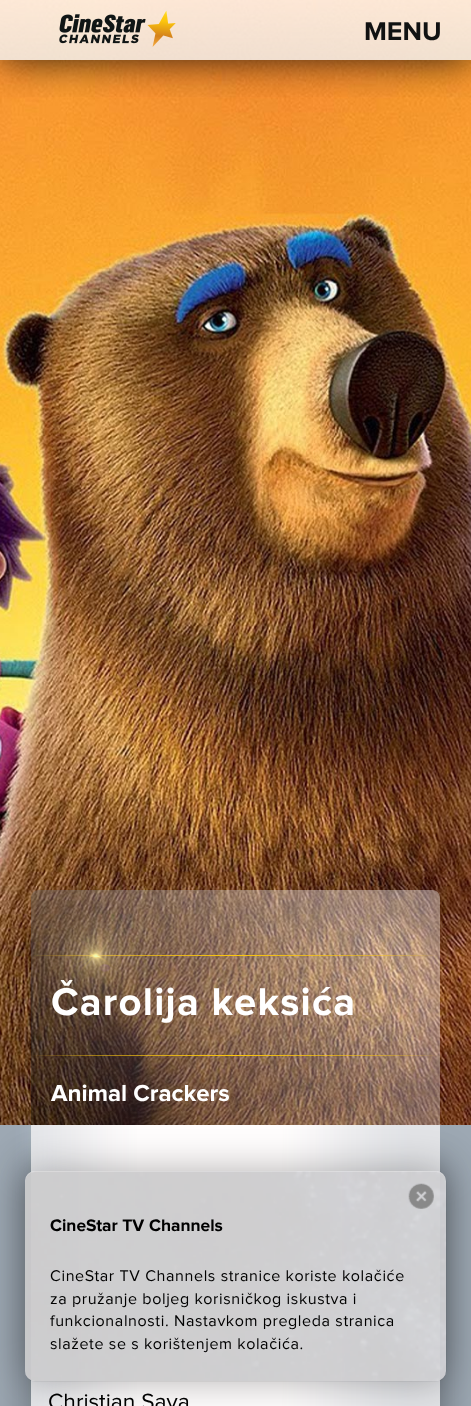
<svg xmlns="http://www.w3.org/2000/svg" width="471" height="1406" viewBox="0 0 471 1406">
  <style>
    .t1 { font: bold 25px Proxima Nova; fill: #111212; }
    .t2 { font: bold 37.5px Proxima Nova; letter-spacing: 1.25px; fill: #fff; }
    .t3 { font: bold 22.5px Proxima Nova; fill: #fff; }
    .t4 { font: 21.25px Proxima Nova; fill: #000; }
    .t5 { font: bold 16.25px Proxima Nova; fill: #000; }
    .t6 { font: 15px Proxima Nova; letter-spacing: 0.6px; fill: #000; }
  </style>
  <defs>
    <clipPath id="clip1"><path d="M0 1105H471V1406H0ZM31 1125H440V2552C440 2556.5 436.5 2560 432 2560H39C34.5 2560 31 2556.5 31 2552Z" clip-rule="evenodd"/></clipPath>
    <clipPath id="clip2"><rect x="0" y="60" width="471" height="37"/></clipPath>
    <linearGradient id="g1" gradientUnits="userSpaceOnUse" x1="75" y1="1168" x2="397" y2="847"><stop offset="0" stop-color="#000" stop-opacity="0.4"/><stop offset="0.82" stop-color="#fffcfc" stop-opacity="0.4"/><stop offset="0.84" stop-color="#fffcfc" stop-opacity="0.4"/></linearGradient>
    <linearGradient id="g2" gradientUnits="userSpaceOnUse" x1="31" y1="956" x2="440" y2="956"><stop offset="0" stop-color="#fdc80d" stop-opacity="0"/><stop offset="0.15" stop-color="#fdc80d" stop-opacity="0.5"/><stop offset="0.5" stop-color="#fdc80d"/><stop offset="0.85" stop-color="#fdc80d" stop-opacity="0.5"/><stop offset="1" stop-color="#fdc80d" stop-opacity="0"/></linearGradient>
    <linearGradient id="g3" gradientUnits="userSpaceOnUse" x1="31" y1="1056" x2="440" y2="1056"><stop offset="0" stop-color="#fdc80d" stop-opacity="0"/><stop offset="0.15" stop-color="#fdc80d" stop-opacity="0.5"/><stop offset="0.5" stop-color="#fdc80d"/><stop offset="0.85" stop-color="#fdc80d" stop-opacity="0.5"/><stop offset="1" stop-color="#fdc80d" stop-opacity="0"/></linearGradient>
    <clipPath id="clip3"><path d="M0 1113H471V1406H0ZM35 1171H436C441.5 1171 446 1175.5 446 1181V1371C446 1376.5 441.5 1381 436 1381H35C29.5 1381 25 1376.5 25 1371V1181C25 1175.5 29.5 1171 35 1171Z" clip-rule="evenodd"/></clipPath>
  </defs>
  <rect width="100%" height="100%" fill="#fff"/>
  <image x="0" y="1125" width="471" height="281" href="images/1.png"/>
  <g clip-path="url(#clip1)">
    <rect x="31" y="1163" width="409" height="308" rx="8" fill="#00000066" filter="blur(19px)"/>
  </g>
  <image x="0" y="0" width="471" height="1125" href="images/3.png"/>
  <g clip-path="url(#clip2)">
    <rect x="0" y="0" width="471" height="60" fill="#000000cc" filter="blur(19px)"/>
  </g>
  <image x="59" y="10" width="117" height="37" href="images/2.png"/>
  <text x="364" y="40" class="t1">MENU</text>
  <image x="31" y="890" width="408" height="235" href="images/4.png"/>
  <path d="M39 890H432C436.5 890 440 893.5 440 898V1125H31V898C31 893.5 34.5 890 39 890Z" fill="url(#g1)"/>
  <rect x="31" y="955" width="409" height="1" fill="url(#g2)"/>
  <text x="51" y="1015" class="t2">Čarolija keksića</text>
  <image x="41" y="911" width="107" height="93" href="images/5.png"/>
  <rect x="31" y="1055" width="409" height="1" fill="url(#g3)"/>
  <text x="51" y="1101" class="t3">Animal Crackers</text>
  <rect x="31" y="1125" width="409" height="281" fill="#fffcfcb3"/>
  <text x="48" y="1409" class="t4">Christian Sava</text>
  <g clip-path="url(#clip3)">
    <rect x="25" y="1171" width="421" height="210" rx="10" fill="#0000004d" filter="blur(19px)"/>
  </g>
  <rect x="25" y="1171" width="421" height="210" rx="10" fill="#fffffff0"/>
  <image x="25" y="1171" width="422" height="211" href="images/6.png"/>
  <image x="408" y="1183" width="26" height="26" href="images/7.png"/>
  <text x="50" y="1231" class="t5">CineStar TV</text>
  <text x="149" y="1231" class="t5">Channels</text>
  <text x="50" y="1281" class="t6">CineStar TV Channels stranice koriste kolačiće</text>
  <text x="50" y="1304" class="t6">za pružanje boljeg korisničkog iskustva i</text>
  <text x="50" y="1326" class="t6">funkcionalnosti. Nastavkom pregleda stranica</text>
  <text x="50" y="1349" class="t6">slažete se s korištenjem kolačića.</text>
</svg>
